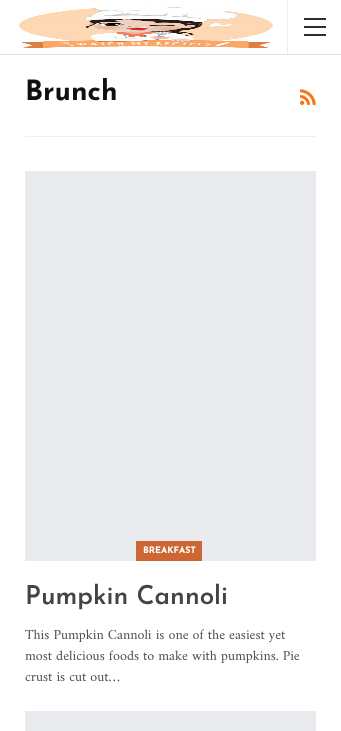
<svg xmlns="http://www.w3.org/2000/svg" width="341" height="731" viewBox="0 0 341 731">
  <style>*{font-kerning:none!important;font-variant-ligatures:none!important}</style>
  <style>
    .t1 { font: bold 28px Josefin Sans; fill: #101010; }
    .t2 { font: bold 9px Josefin Sans; fill: #fff; }
    .t3 { font: 600 26px Josefin Sans; fill: #444; }
    .t4 { font: 14px Amiri; fill: #4f4f4f; }
  </style>
  <rect width="100%" height="100%" fill="#fff"/>
  <rect x="0" y="54" width="341" height="1" fill="#e5e5e5"/>
  <image x="18" y="6" width="255" height="42" href="images/1.png"/>
  <rect x="287" y="0" width="1" height="54" fill="#ededed"/>
  <rect x="304" y="26" width="22" height="2" fill="#2c2c2c"/>
  <rect x="304" y="18" width="22" height="2" fill="#2c2c2c"/>
  <rect x="304" y="34" width="22" height="2" fill="#2c2c2c"/>
  <rect x="25" y="136" width="291" height="1" fill="#f0f0f0"/>
  <text x="25" y="100" class="t1">Brunch</text>
  <image x="300" y="89" width="16" height="16" href="images/2.png"/>
  <rect x="25" y="171" width="291" height="390" fill="#e9ebee"/>
  <rect x="136" y="541" width="66" height="20" fill="#c63"/>
  <text x="143" y="553" class="t2">BREAKFAST</text>
  <text x="25" y="604" class="t3">Pumpkin Cannoli</text>
  <text x="25" y="639" class="t4">This Pumpkin Cannoli is one of the easiest yet</text>
  <text x="25" y="660" class="t4">most delicious foods to make with pumpkins. Pie</text>
  <text x="25" y="681" class="t4">crust is cut out…</text>
  <rect x="25" y="711" width="291" height="20" fill="#e9ebee"/>
</svg>
